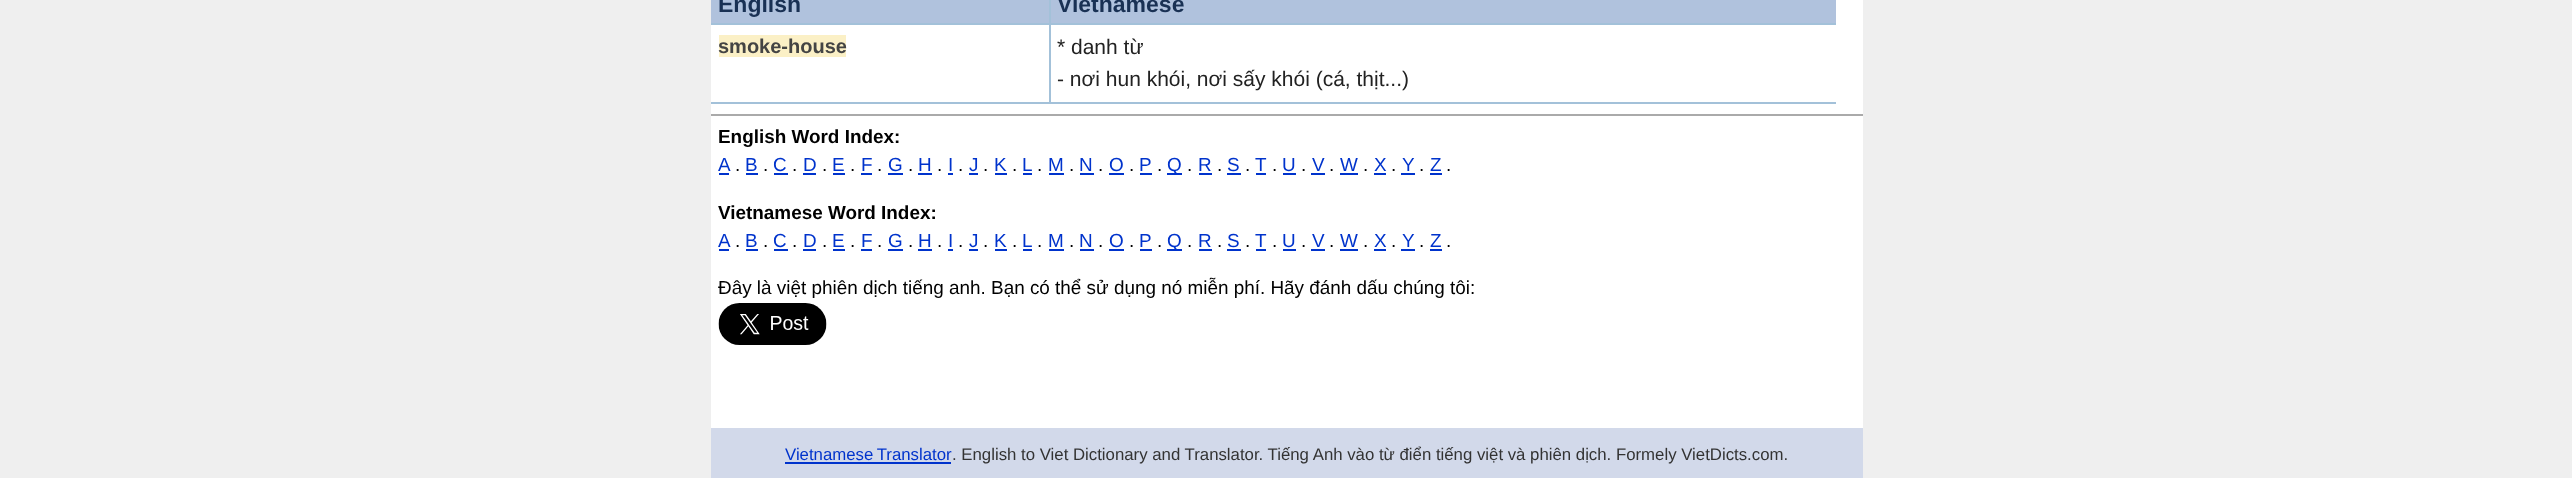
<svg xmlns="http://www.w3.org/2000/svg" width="2572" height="478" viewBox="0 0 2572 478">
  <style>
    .t1 { font: bold 23px Liberation Sans; fill: #193154; }
    .t2 { font: bold 20px Liberation Sans; fill: #444; }
    .t3 { font: 21px Liberation Sans; fill: #222; }
    .t4 { font: bold 18.9px Liberation Sans; fill: #000; }
    .t5 { font: 18.9px Liberation Sans; fill: #03c; }
    .t6 { font: 18.9px Liberation Sans; fill: #000; }
    .t7 { font: 16.8px Liberation Sans; fill: #03c; }
    .t8 { font: 16.8px Liberation Sans; fill: #333; }
  </style>
  <rect width="100%" height="100%" fill="#efefef"/>
  <rect x="711" y="0" width="1152" height="428" fill="#fff"/>
  <rect x="711" y="0" width="1125" height="23" fill="#b0c2dd"/>
  <rect x="711" y="23" width="1125" height="2" fill="#a3c1d9"/>
  <text x="718" y="12" class="t1">English</text>
  <rect x="1049" y="0" width="2" height="24" fill="#a3c1d9"/>
  <text x="1057" y="12" class="t1">Vietnamese</text>
  <rect x="711" y="102" width="1125" height="2" fill="#a3c1d9"/>
  <rect x="719" y="35" width="127" height="22" fill="#fbf0c6"/>
  <text x="718" y="53" class="t2">smoke-house</text>
  <rect x="1049" y="24" width="2" height="80" fill="#a3c1d9"/>
  <text x="1057" y="54" class="t3">* danh từ</text>
  <text x="1057" y="86" class="t3">- nơi hun khói, nơi sấy khói (cá, thịt...)</text>
  <rect x="711" y="114" width="1152" height="2" fill="#aaa"/>
  <text x="718" y="143" class="t4">English Word Index:</text>
  <text x="718" y="171" class="t5">A</text>
  <rect x="719" y="173" width="10" height="2" fill="#03c"/>
  <text x="735" y="171" class="t6">.</text>
  <text x="745" y="171" class="t5">B</text>
  <rect x="746" y="173" width="12" height="2" fill="#03c"/>
  <text x="763" y="171" class="t6">.</text>
  <text x="773" y="171" class="t5">C</text>
  <rect x="774" y="173" width="14" height="2" fill="#03c"/>
  <text x="792" y="171" class="t6">.</text>
  <text x="803" y="171" class="t5">D</text>
  <rect x="803" y="173" width="13" height="2" fill="#03c"/>
  <text x="822" y="171" class="t6">.</text>
  <text x="832" y="171" class="t5">E</text>
  <rect x="833" y="173" width="12" height="2" fill="#03c"/>
  <text x="850" y="171" class="t6">.</text>
  <text x="861" y="171" class="t5">F</text>
  <rect x="861" y="173" width="11" height="2" fill="#03c"/>
  <text x="877" y="171" class="t6">.</text>
  <text x="888" y="171" class="t5">G</text>
  <rect x="888" y="173" width="15" height="2" fill="#03c"/>
  <text x="908" y="171" class="t6">.</text>
  <text x="918" y="171" class="t5">H</text>
  <rect x="918" y="173" width="14" height="2" fill="#03c"/>
  <text x="937" y="171" class="t6">.</text>
  <text x="948" y="171" class="t5">I</text>
  <rect x="948" y="173" width="5" height="2" fill="#03c"/>
  <text x="958" y="171" class="t6">.</text>
  <text x="969" y="171" class="t5">J</text>
  <rect x="969" y="173" width="9" height="2" fill="#03c"/>
  <text x="983" y="171" class="t6">.</text>
  <text x="994" y="171" class="t5">K</text>
  <rect x="995" y="173" width="12" height="2" fill="#03c"/>
  <text x="1012" y="171" class="t6">.</text>
  <text x="1022" y="171" class="t5">L</text>
  <rect x="1023" y="173" width="9" height="2" fill="#03c"/>
  <text x="1037" y="171" class="t6">.</text>
  <text x="1048" y="171" class="t5">M</text>
  <rect x="1049" y="173" width="15" height="2" fill="#03c"/>
  <text x="1069" y="171" class="t6">.</text>
  <text x="1079" y="171" class="t5">N</text>
  <rect x="1080" y="173" width="14" height="2" fill="#03c"/>
  <text x="1098" y="171" class="t6">.</text>
  <text x="1109" y="171" class="t5">O</text>
  <rect x="1109" y="173" width="15" height="2" fill="#03c"/>
  <text x="1129" y="171" class="t6">.</text>
  <text x="1139" y="171" class="t5">P</text>
  <rect x="1140" y="173" width="12" height="2" fill="#03c"/>
  <text x="1157" y="171" class="t6">.</text>
  <rect x="1167" y="173" width="15" height="2" fill="#03c"/>
  <text x="1167" y="171" class="t5">Q</text>
  <text x="1187" y="171" class="t6">.</text>
  <text x="1198" y="171" class="t5">R</text>
  <rect x="1199" y="173" width="13" height="2" fill="#03c"/>
  <text x="1217" y="171" class="t6">.</text>
  <text x="1227" y="171" class="t5">S</text>
  <rect x="1227" y="173" width="14" height="2" fill="#03c"/>
  <text x="1245" y="171" class="t6">.</text>
  <text x="1255" y="171" class="t5">T</text>
  <rect x="1256" y="173" width="10" height="2" fill="#03c"/>
  <text x="1272" y="171" class="t6">.</text>
  <text x="1282" y="171" class="t5">U</text>
  <rect x="1283" y="173" width="13" height="2" fill="#03c"/>
  <text x="1301" y="171" class="t6">.</text>
  <text x="1312" y="171" class="t5">V</text>
  <rect x="1311" y="173" width="14" height="2" fill="#03c"/>
  <text x="1329" y="171" class="t6">.</text>
  <text x="1340" y="171" class="t5">W</text>
  <rect x="1340" y="173" width="18" height="2" fill="#03c"/>
  <text x="1363" y="171" class="t6">.</text>
  <text x="1374" y="171" class="t5">X</text>
  <rect x="1374" y="173" width="12" height="2" fill="#03c"/>
  <text x="1391" y="171" class="t6">.</text>
  <text x="1402" y="171" class="t5">Y</text>
  <rect x="1401" y="173" width="14" height="2" fill="#03c"/>
  <text x="1419" y="171" class="t6">.</text>
  <text x="1430" y="171" class="t5">Z</text>
  <rect x="1430" y="173" width="12" height="2" fill="#03c"/>
  <text x="1446" y="171" class="t6">.</text>
  <text x="718" y="219" class="t4">Vietnamese Word Index:</text>
  <text x="718" y="247" class="t5">A</text>
  <rect x="719" y="249" width="10" height="2" fill="#03c"/>
  <text x="735" y="247" class="t6">.</text>
  <text x="745" y="247" class="t5">B</text>
  <rect x="746" y="249" width="12" height="2" fill="#03c"/>
  <text x="763" y="247" class="t6">.</text>
  <text x="773" y="247" class="t5">C</text>
  <rect x="774" y="249" width="14" height="2" fill="#03c"/>
  <text x="792" y="247" class="t6">.</text>
  <text x="803" y="247" class="t5">D</text>
  <rect x="803" y="249" width="13" height="2" fill="#03c"/>
  <text x="822" y="247" class="t6">.</text>
  <text x="832" y="247" class="t5">E</text>
  <rect x="833" y="249" width="12" height="2" fill="#03c"/>
  <text x="850" y="247" class="t6">.</text>
  <text x="861" y="247" class="t5">F</text>
  <rect x="861" y="249" width="11" height="2" fill="#03c"/>
  <text x="877" y="247" class="t6">.</text>
  <text x="888" y="247" class="t5">G</text>
  <rect x="888" y="249" width="15" height="2" fill="#03c"/>
  <text x="908" y="247" class="t6">.</text>
  <text x="918" y="247" class="t5">H</text>
  <rect x="918" y="249" width="14" height="2" fill="#03c"/>
  <text x="937" y="247" class="t6">.</text>
  <text x="948" y="247" class="t5">I</text>
  <rect x="948" y="249" width="5" height="2" fill="#03c"/>
  <text x="958" y="247" class="t6">.</text>
  <text x="969" y="247" class="t5">J</text>
  <rect x="969" y="249" width="9" height="2" fill="#03c"/>
  <text x="983" y="247" class="t6">.</text>
  <text x="994" y="247" class="t5">K</text>
  <rect x="995" y="249" width="12" height="2" fill="#03c"/>
  <text x="1012" y="247" class="t6">.</text>
  <text x="1022" y="247" class="t5">L</text>
  <rect x="1023" y="249" width="9" height="2" fill="#03c"/>
  <text x="1037" y="247" class="t6">.</text>
  <text x="1048" y="247" class="t5">M</text>
  <rect x="1049" y="249" width="15" height="2" fill="#03c"/>
  <text x="1069" y="247" class="t6">.</text>
  <text x="1079" y="247" class="t5">N</text>
  <rect x="1080" y="249" width="14" height="2" fill="#03c"/>
  <text x="1098" y="247" class="t6">.</text>
  <text x="1109" y="247" class="t5">O</text>
  <rect x="1109" y="249" width="15" height="2" fill="#03c"/>
  <text x="1129" y="247" class="t6">.</text>
  <text x="1139" y="247" class="t5">P</text>
  <rect x="1140" y="249" width="12" height="2" fill="#03c"/>
  <text x="1157" y="247" class="t6">.</text>
  <rect x="1167" y="249" width="15" height="2" fill="#03c"/>
  <text x="1167" y="247" class="t5">Q</text>
  <text x="1187" y="247" class="t6">.</text>
  <text x="1198" y="247" class="t5">R</text>
  <rect x="1199" y="249" width="13" height="2" fill="#03c"/>
  <text x="1217" y="247" class="t6">.</text>
  <text x="1227" y="247" class="t5">S</text>
  <rect x="1227" y="249" width="14" height="2" fill="#03c"/>
  <text x="1245" y="247" class="t6">.</text>
  <text x="1255" y="247" class="t5">T</text>
  <rect x="1256" y="249" width="10" height="2" fill="#03c"/>
  <text x="1272" y="247" class="t6">.</text>
  <text x="1282" y="247" class="t5">U</text>
  <rect x="1283" y="249" width="13" height="2" fill="#03c"/>
  <text x="1301" y="247" class="t6">.</text>
  <text x="1312" y="247" class="t5">V</text>
  <rect x="1311" y="249" width="14" height="2" fill="#03c"/>
  <text x="1329" y="247" class="t6">.</text>
  <text x="1340" y="247" class="t5">W</text>
  <rect x="1340" y="249" width="18" height="2" fill="#03c"/>
  <text x="1363" y="247" class="t6">.</text>
  <text x="1374" y="247" class="t5">X</text>
  <rect x="1374" y="249" width="12" height="2" fill="#03c"/>
  <text x="1391" y="247" class="t6">.</text>
  <text x="1402" y="247" class="t5">Y</text>
  <rect x="1401" y="249" width="14" height="2" fill="#03c"/>
  <text x="1419" y="247" class="t6">.</text>
  <text x="1430" y="247" class="t5">Z</text>
  <rect x="1430" y="249" width="12" height="2" fill="#03c"/>
  <text x="1446" y="247" class="t6">.</text>
  <text x="718" y="294" class="t6">Đây là việt phiên dịch tiếng anh. Bạn có thể sử dụng nó miễn phí. Hãy đánh dấu chúng tôi:</text>
  <image x="718" y="303" width="109" height="42" href="images/1.png"/>
  <rect x="711" y="428" width="1152" height="50" fill="#d2d9ea"/>
  <text x="785" y="460" word-spacing="-1" class="t7">Vietnamese Translator</text>
  <rect x="785" y="462" width="166" height="2" fill="#03c"/>
  <text x="952" y="460" class="t8">. English to Viet Dictionary and Translator. Tiếng Anh vào từ điển tiếng việt và phiên dịch. Formely VietDicts.com.</text>
</svg>
